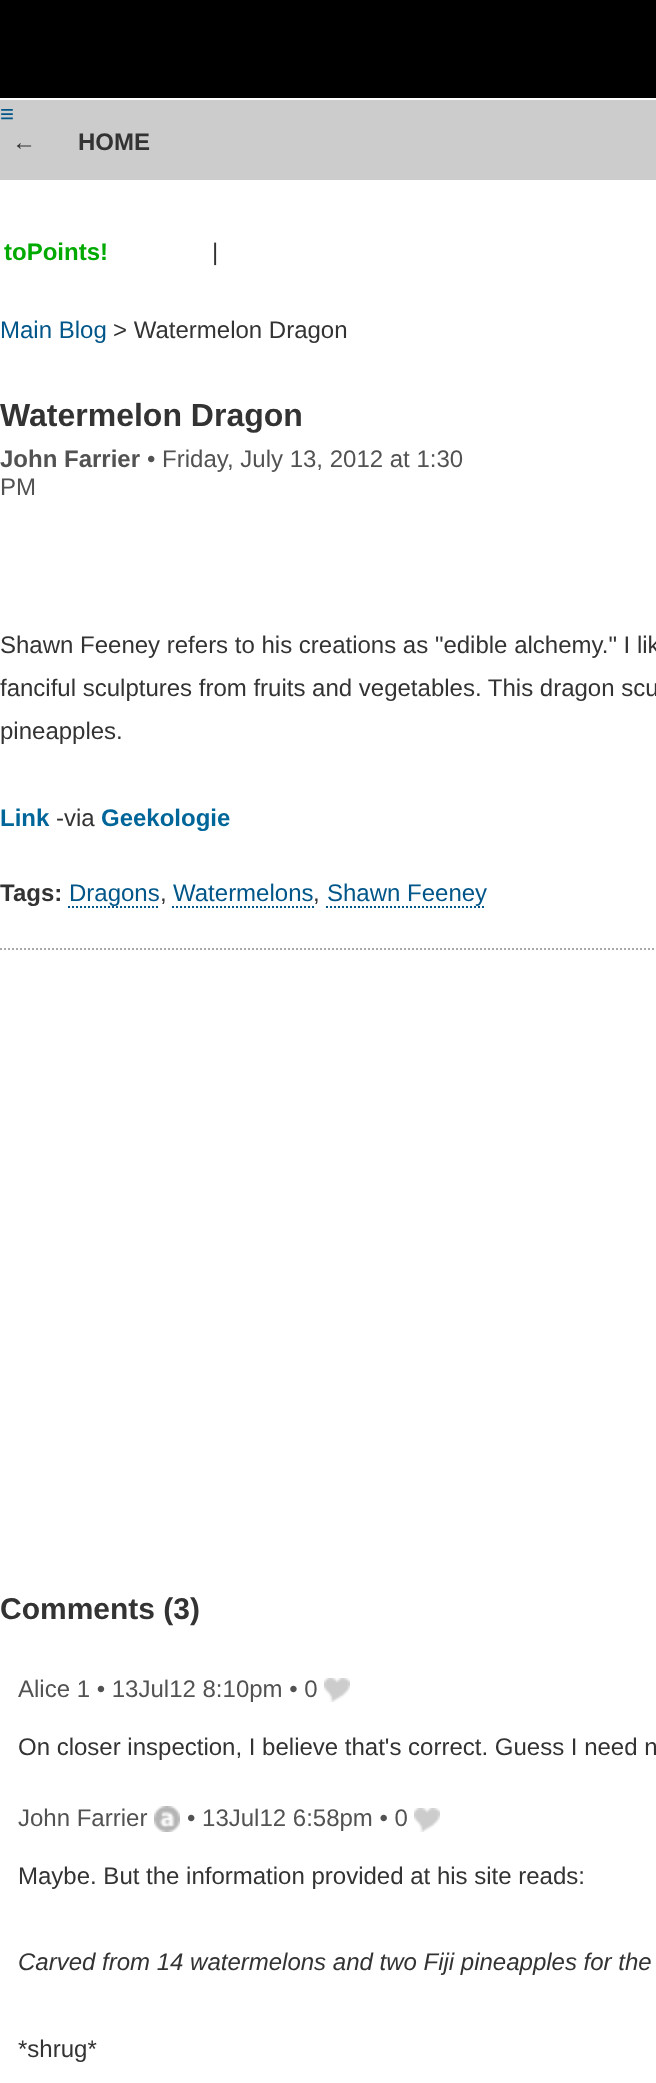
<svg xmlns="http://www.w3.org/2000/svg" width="656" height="2083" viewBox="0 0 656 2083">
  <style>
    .t1 { font: 24px Liberation Sans; fill: #005689; }
    .t2 { font: 24px Liberation Sans; fill: #333; }
    .t3 { font: bold 24px Liberation Sans; fill: #333; }
    .t4 { font: bold 24px Liberation Sans; fill: #0a0; }
    .t5 { font: bold 32px Liberation Sans; fill: #333; }
    .t6 { font: bold 24px Liberation Sans; fill: #525252; }
    .t7 { font: 24px Liberation Sans; fill: #525252; }
    .t8 { font: bold 24px Liberation Sans; fill: #069; }
    .t9 { font: bold 30px Liberation Sans; fill: #333; }
    .t10 { font: italic 24px Liberation Sans; fill: #333; }
  </style>
  <rect width="100%" height="100%" fill="#fff"/>
  <rect x="0" y="0" width="656" height="98" fill="#000"/>
  <rect x="0" y="100" width="656" height="80" fill="#ccc"/>
  <text x="0" y="122" class="t1">≡</text>
  <text x="12" y="150" class="t2">←</text>
  <text x="78" y="150" class="t3">HOME</text>
  <text x="4" y="260" class="t4">toPoints!</text>
  <text x="212" y="260" class="t2">|</text>
  <text x="0" y="338" class="t1">Main Blog</text>
  <text x="113" y="338" class="t2">&gt; Watermelon Dragon</text>
  <text x="0" y="426" class="t5">Watermelon Dragon</text>
  <text x="0" y="467" class="t6">John Farrier</text>
  <text x="147" y="467" class="t7">• Friday, July 13, 2012 at 1:30</text>
  <text x="0" y="495" class="t7">PM</text>
  <text x="0" y="653" class="t2">Shawn Feeney refers to his creations as "edible alchemy." I lik</text>
  <text x="0" y="696" class="t2">fanciful sculptures from fruits and vegetables. This dragon scu</text>
  <text x="0" y="739" class="t2">pineapples.</text>
  <text x="0" y="826" class="t8">Link</text>
  <text x="56" y="826" class="t2">-via</text>
  <text x="101" y="826" class="t8">Geekologie</text>
  <text x="0" y="901" class="t3">Tags:</text>
  <text x="69" y="901" class="t1">Dragons</text>
  <path d="M68 907H160" fill="none" stroke="#005689" stroke-width="2" stroke-dasharray="2 2"/>
  <text x="160" y="901" class="t2">,</text>
  <text x="173" y="901" class="t1">Watermelons</text>
  <path d="M172 907H314" fill="none" stroke="#005689" stroke-width="2" stroke-dasharray="2 2"/>
  <text x="313" y="901" class="t2">,</text>
  <text x="327" y="901" class="t1">Shawn Feeney</text>
  <path d="M326 907H486" fill="none" stroke="#005689" stroke-width="2" stroke-dasharray="2 2"/>
  <path d="M0 949H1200" fill="none" stroke="#aaa" stroke-width="2" stroke-dasharray="2 2"/>
  <text x="0" y="1619" class="t9">Comments (3)</text>
  <text x="18" y="1697" class="t7">Alice 1 • 13Jul12 8:10pm • 0</text>
  <image x="324" y="1678" width="26" height="24" href="images/1.png"/>
  <text x="18" y="1755" class="t2">On closer inspection, I believe that's correct. Guess I need n</text>
  <text x="18" y="1826" class="t7">John Farrier</text>
  <image x="154" y="1806" width="26" height="26" href="images/2.png"/>
  <text x="187" y="1826" class="t7">• 13Jul12 6:58pm • 0</text>
  <image x="414" y="1808" width="26" height="24" href="images/1.png"/>
  <text x="18" y="1884" class="t2">Maybe. But the information provided at his site reads:</text>
  <text x="18" y="1970" class="t10">Carved from 14 watermelons and two Fiji pineapples for the</text>
  <text x="18" y="2057" class="t2">*shrug*</text>
</svg>
